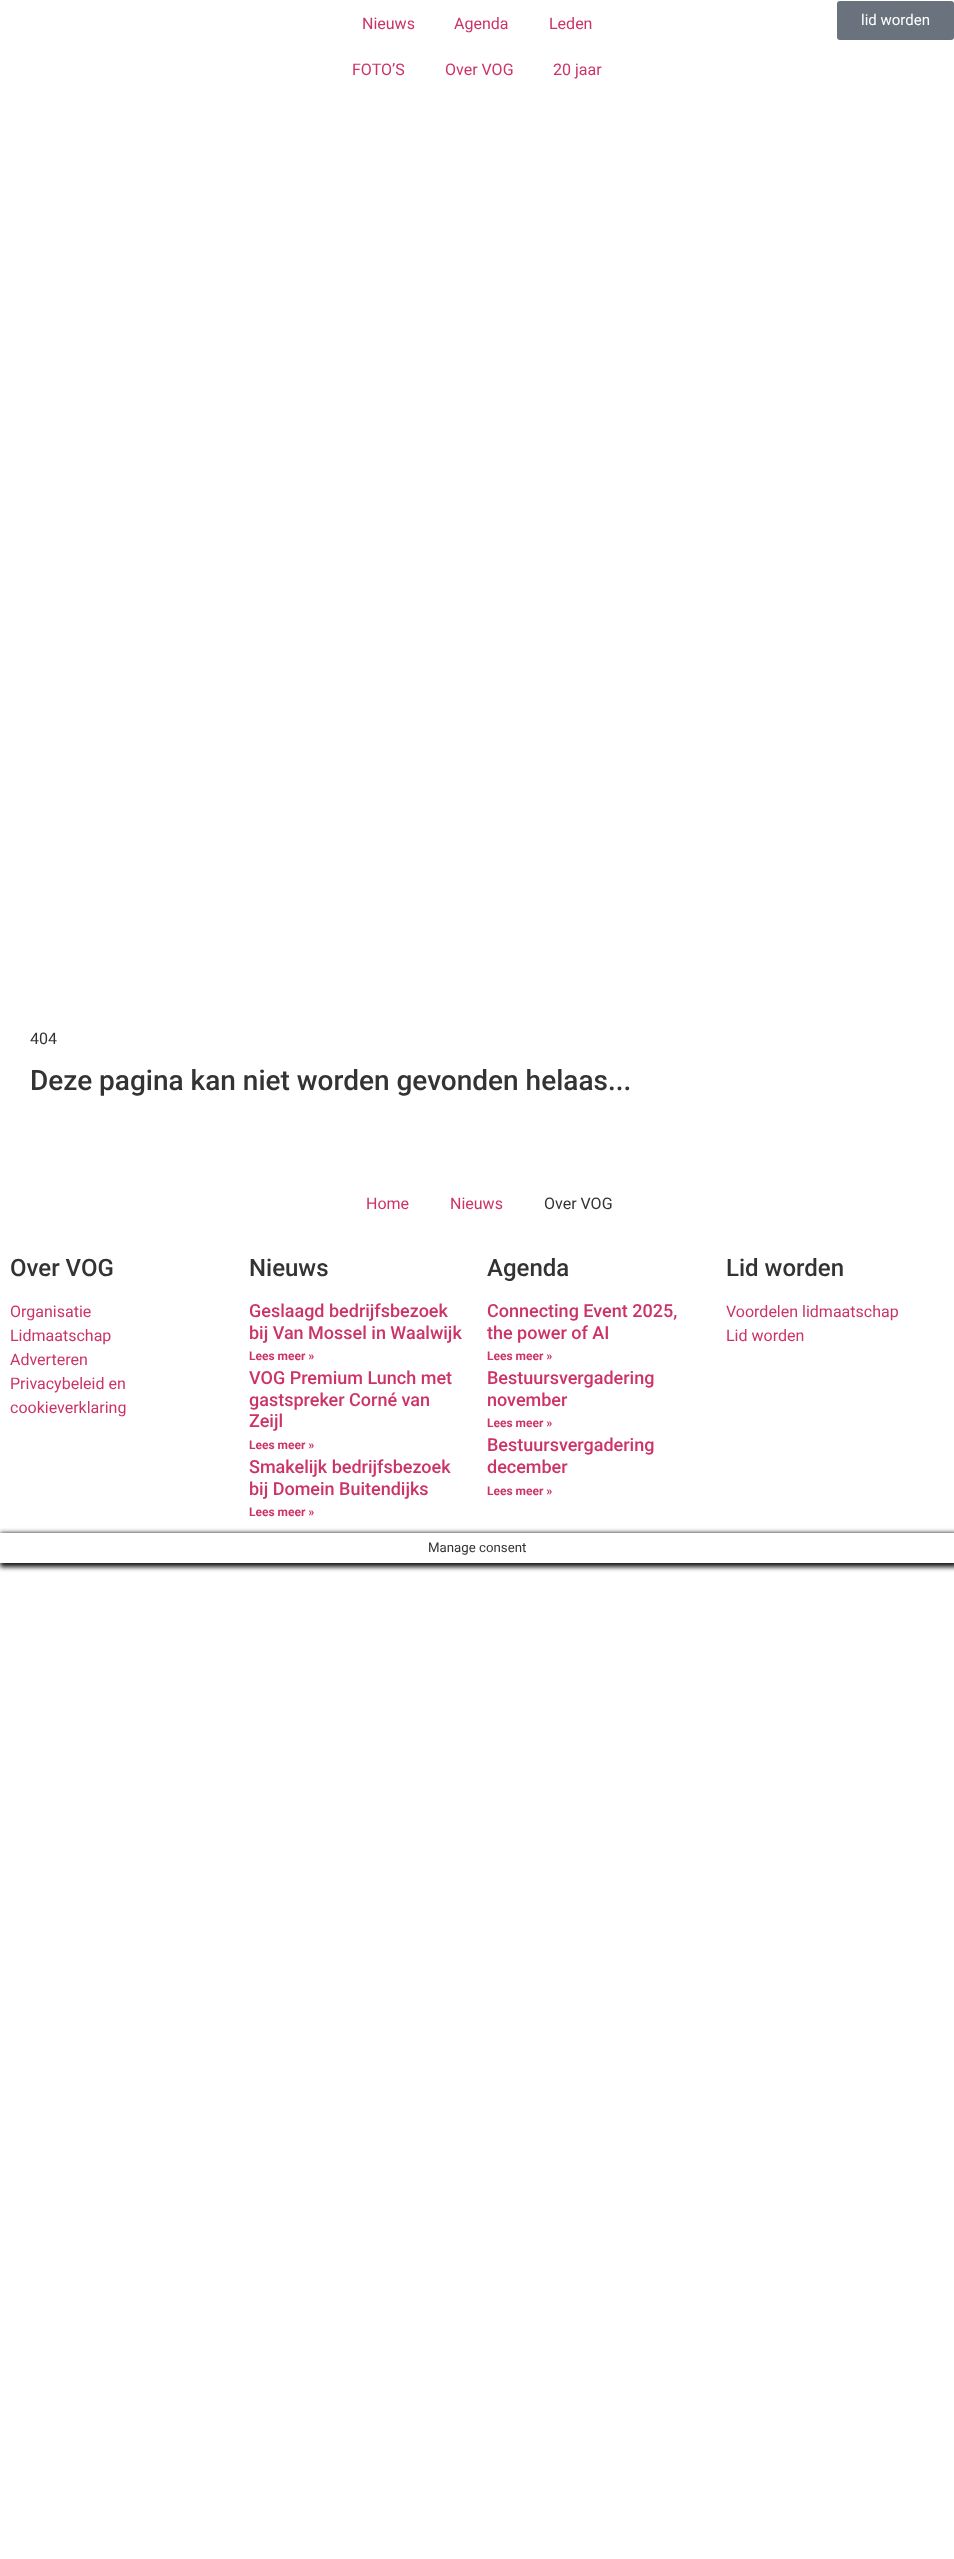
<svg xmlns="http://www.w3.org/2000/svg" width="954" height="2559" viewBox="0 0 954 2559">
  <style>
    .t1 { font: 16px Roboto; fill: #c36; }
    .t2 { font: 15px Roboto; fill: #fff; }
    .t3 { font: 16px Roboto; fill: #333; }
    .t4 { font: 500 28px Roboto; fill: #333; }
    .t5 { font: 500 24px Roboto; fill: #333; }
    .t6 { font: 500 18px Roboto; fill: #c36; }
    .t7 { font: bold 12px Roboto; fill: #c36; }
    .t8 { font: 13.25px Roboto; fill: #333; }
  </style>
  <defs>
    <clipPath id="clip1"><path d="M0 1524H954V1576H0ZM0 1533H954V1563H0Z" clip-rule="evenodd"/></clipPath>
  </defs>
  <rect width="100%" height="100%" fill="#fff"/>
  <text x="362" y="29" class="t1">Nieuws</text>
  <text x="454" y="29" class="t1">Agenda</text>
  <text x="549" y="29" class="t1">Leden</text>
  <text x="352" y="75" class="t1">FOTO’S</text>
  <text x="445" y="75" class="t1">Over VOG</text>
  <text x="553" y="75" class="t1">20 jaar</text>
  <rect x="837" y="1" width="117" height="39" rx="3" fill="#69727d"/>
  <text x="861" y="25" class="t2">lid worden</text>
  <text x="30" y="1044" class="t3">404</text>
  <text x="30" y="1090" class="t4">Deze pagina kan niet worden gevonden helaas...</text>
  <text x="366" y="1209" class="t1">Home</text>
  <text x="450" y="1209" class="t1">Nieuws</text>
  <text x="544" y="1209" class="t3">Over VOG</text>
  <text x="10" y="1276" class="t5">Over VOG</text>
  <text x="10" y="1317" class="t1">Organisatie</text>
  <text x="10" y="1341" class="t1">Lidmaatschap</text>
  <text x="10" y="1365" class="t1">Adverteren</text>
  <text x="10" y="1389" class="t1">Privacybeleid en</text>
  <text x="10" y="1413" class="t1">cookieverklaring</text>
  <text x="249" y="1276" class="t5">Nieuws</text>
  <text x="249" y="1317" class="t6">Geslaagd bedrijfsbezoek</text>
  <text x="249" y="1339" class="t6">bij Van Mossel in Waalwijk</text>
  <text x="249" y="1360" class="t7">Lees meer »</text>
  <text x="249" y="1384" class="t6">VOG Premium Lunch met</text>
  <text x="249" y="1406" class="t6">gastspreker Corné van</text>
  <text x="249" y="1427" class="t6">Zeijl</text>
  <text x="249" y="1449" class="t7">Lees meer »</text>
  <text x="249" y="1473" class="t6">Smakelijk bedrijfsbezoek</text>
  <text x="249" y="1495" class="t6">bij Domein Buitendijks</text>
  <text x="249" y="1516" class="t7">Lees meer »</text>
  <text x="487" y="1276" class="t5">Agenda</text>
  <text x="487" y="1317" class="t6">Connecting Event 2025,</text>
  <text x="487" y="1339" class="t6">the power of AI</text>
  <text x="487" y="1360" class="t7">Lees meer »</text>
  <text x="487" y="1384" class="t6">Bestuursvergadering</text>
  <text x="487" y="1406" class="t6">november</text>
  <text x="487" y="1427" class="t7">Lees meer »</text>
  <text x="487" y="1451" class="t6">Bestuursvergadering</text>
  <text x="487" y="1473" class="t6">december</text>
  <text x="487" y="1495" class="t7">Lees meer »</text>
  <text x="726" y="1276" class="t5">Lid worden</text>
  <text x="726" y="1317" class="t1">Voordelen lidmaatschap</text>
  <text x="726" y="1341" class="t1">Lid worden</text>
  <g clip-path="url(#clip1)">
    <rect x="0" y="1533" width="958" height="34" fill="#161616" filter="blur(2.5px)"/>
  </g>
  <text x="428" y="1552" class="t8">Manage consent</text>
</svg>
